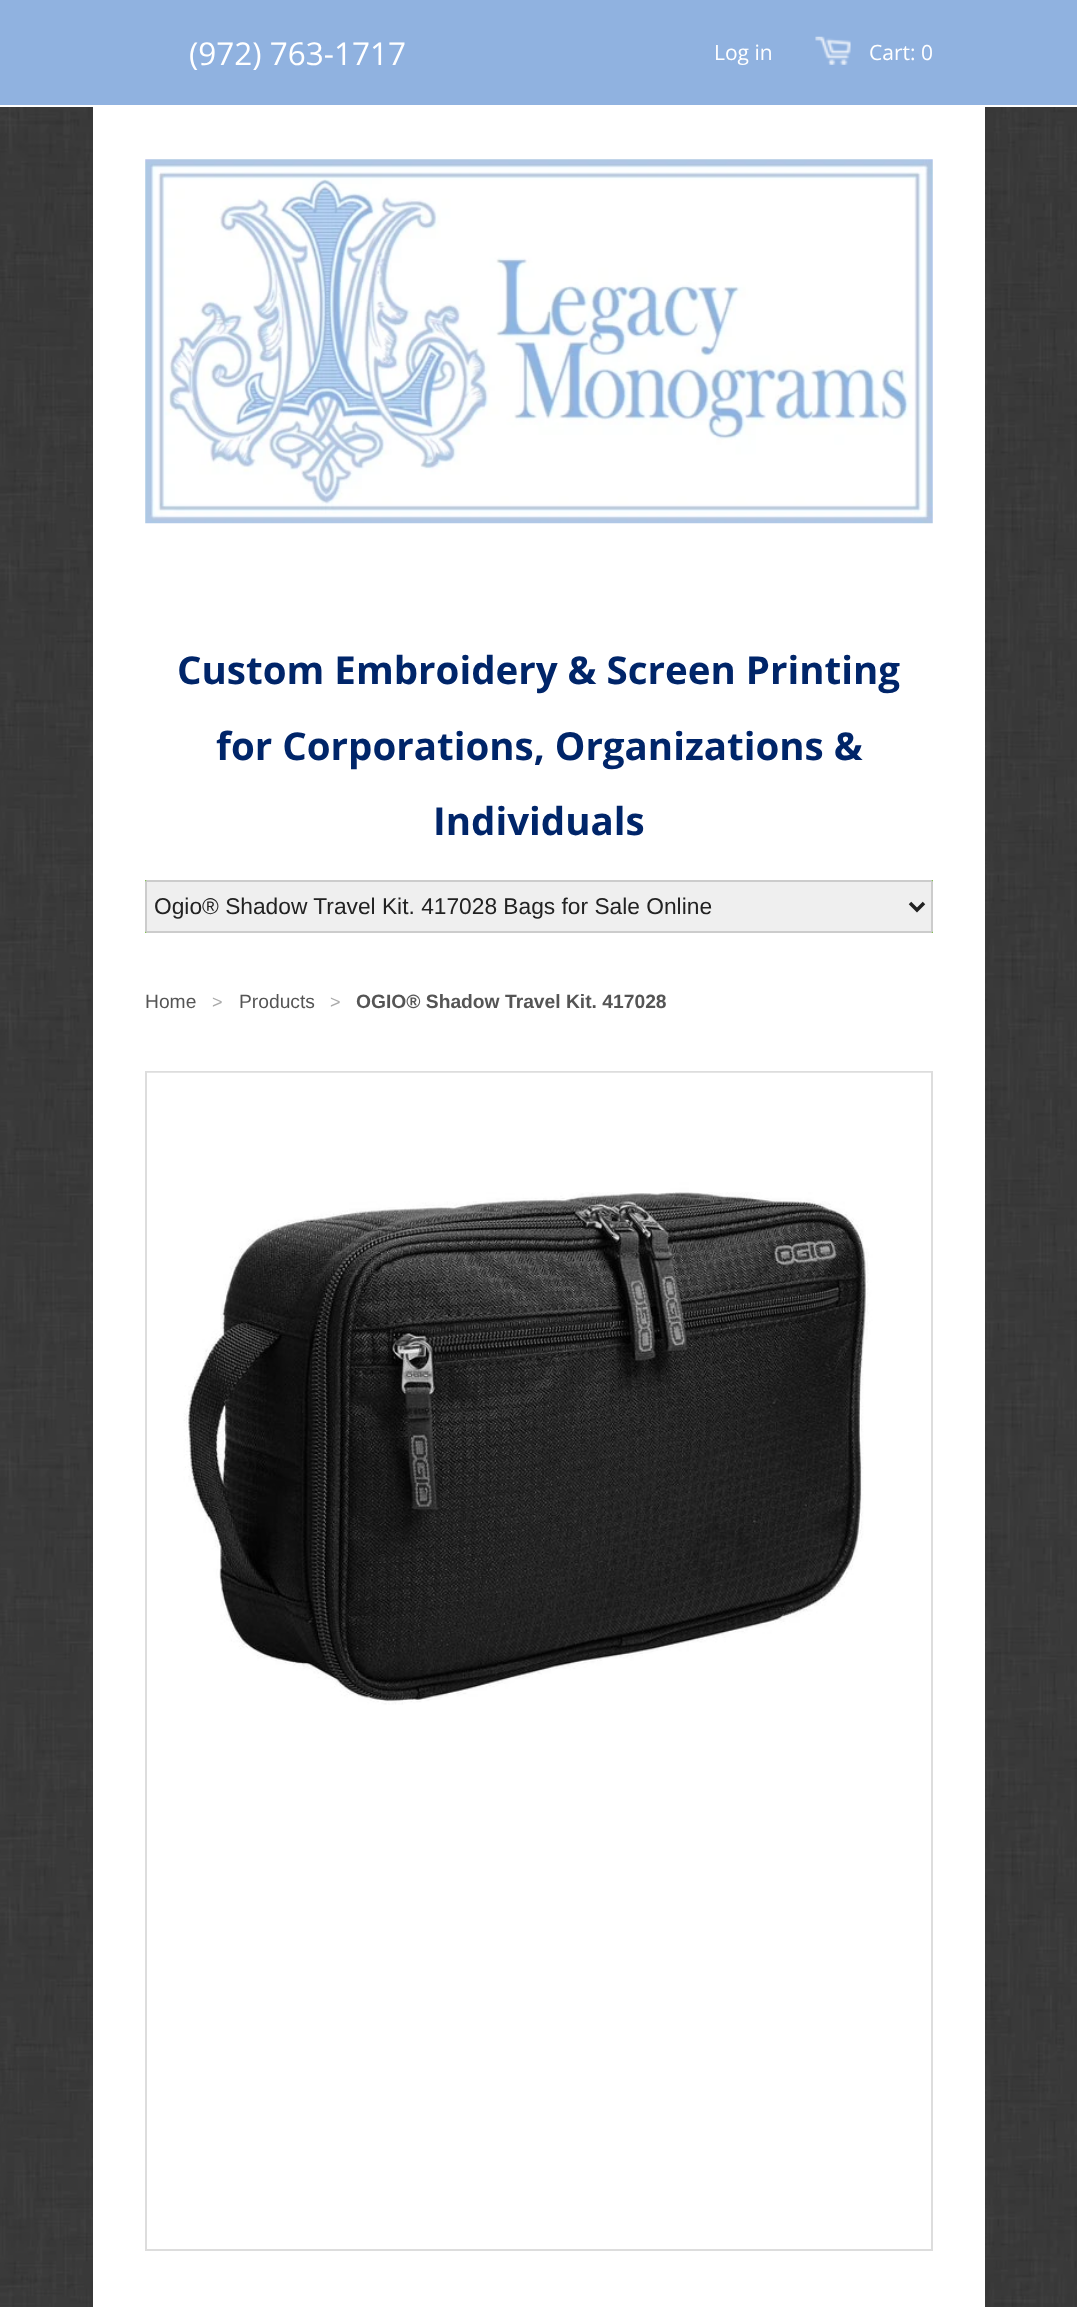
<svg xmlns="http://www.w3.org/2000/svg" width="1077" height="2307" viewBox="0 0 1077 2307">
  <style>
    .t1 { font: 31.5px Open Sans; fill: #fff; }
    .t2 { font: 21px Open Sans; fill: #fff; }
    .t3 { font: bold 38.5px Open Sans; fill: #002569; }
    .t4 { font: 22.75px Liberation Sans; fill: #222; }
    .t5 { font: 19.25px Liberation Sans; fill: #555; }
    .t6 { font: 18px Liberation Sans; fill: #aaa; }
    .t7 { font: bold 19.25px Liberation Sans; fill: #555; }
  </style>
  <rect width="100%" height="100%" fill="#fff"/>
  <image x="0" y="107" width="1077" height="2200" href="images/1.png"/>
  <rect x="0" y="0" width="1077" height="105" fill="#90b2e0"/>
  <text x="189" y="65" class="t1">(972) 763-1717</text>
  <text x="714" y="60" class="t2">Log in</text>
  <image x="815" y="36" width="36" height="29" href="images/2.png"/>
  <text x="869" y="60" class="t2">Cart: 0</text>
  <rect x="93" y="107" width="892" height="2200" fill="#fff"/>
  <image x="145" y="159" width="788" height="365" href="images/3.png"/>
  <text x="177" y="684" class="t3">Custom Embroidery &amp; Screen Printing</text>
  <text x="216" y="760" class="t3">for Corporations, Organizations &amp;</text>
  <text x="433" y="835" class="t3">Individuals</text>
  <rect x="145" y="880" width="788" height="53" fill="#62bd19"/>
  <rect x="146" y="881" width="786" height="51" rx="1" fill="#efefef" stroke="#ccc" stroke-width="2"/>
  <path d="M910 903L917 910L924 903" fill="none" stroke="#222" stroke-width="3.5"/>
  <text x="154" y="914" class="t4">Ogio® Shadow Travel Kit. 417028 Bags for Sale Online</text>
  <text x="145" y="1008" class="t5">Home</text>
  <text x="212" y="1008" class="t6">&gt;</text>
  <text x="239" y="1008" class="t5">Products</text>
  <text x="330" y="1008" class="t6">&gt;</text>
  <text x="356" y="1008" class="t7">OGIO® Shadow Travel Kit. 417028</text>
  <rect x="146" y="1072" width="786" height="1178" fill="none" stroke="#ddd" stroke-width="2"/>
  <image x="147" y="1072" width="784" height="633" href="images/4.png"/>
</svg>
